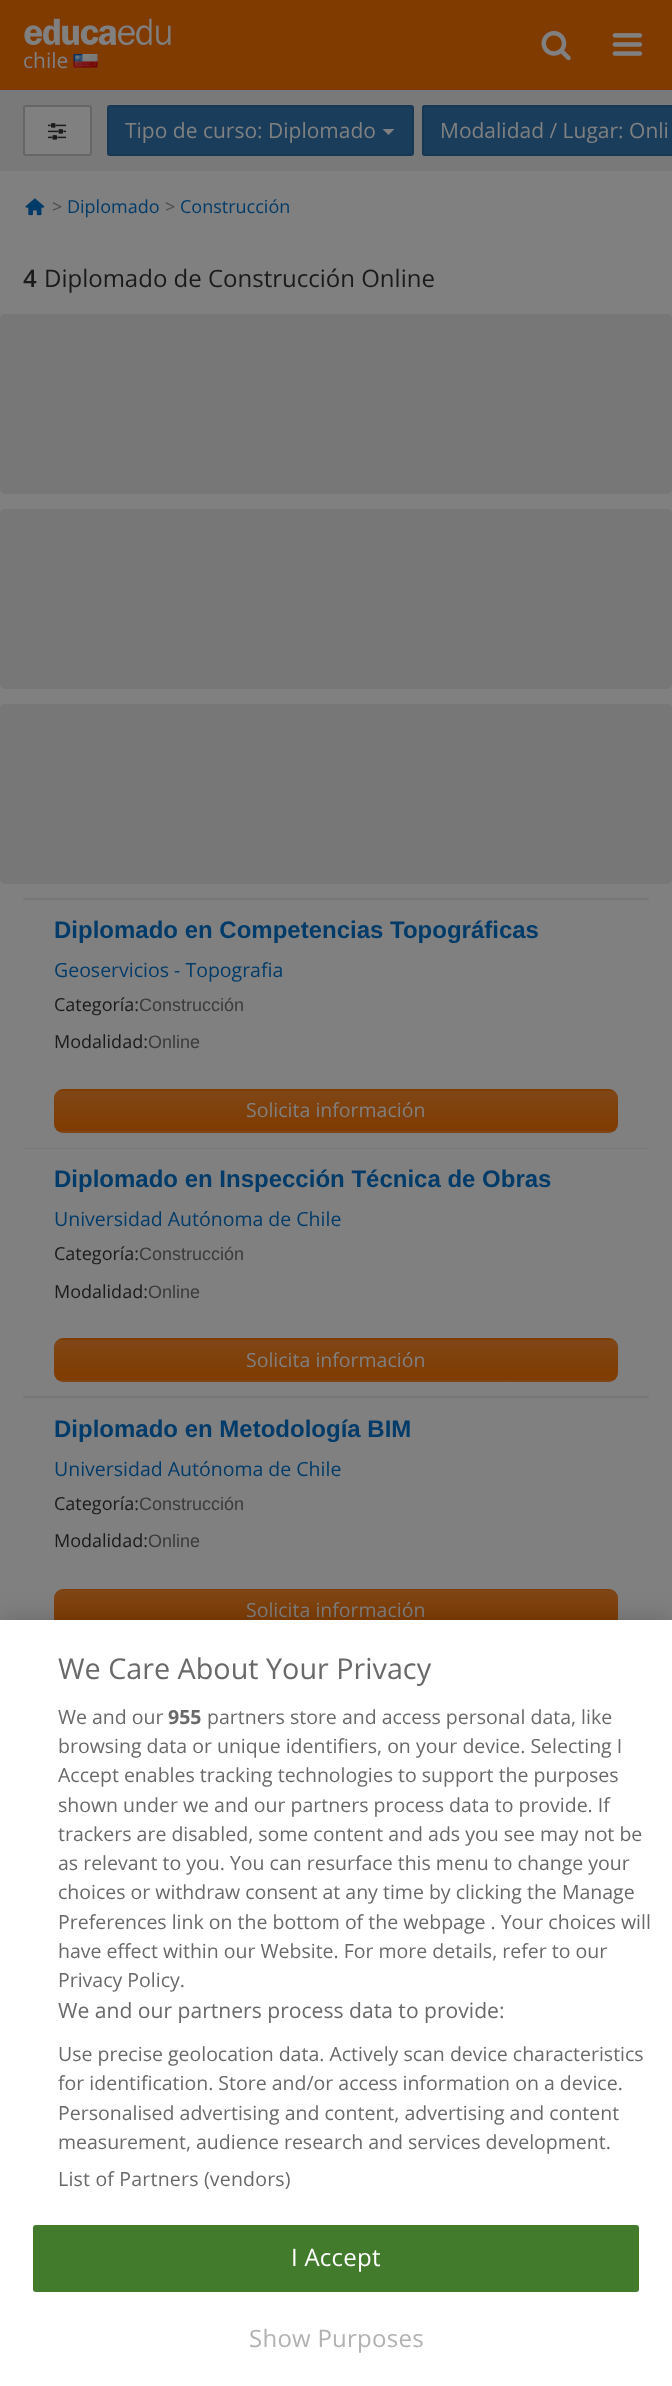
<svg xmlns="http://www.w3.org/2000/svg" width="672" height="2386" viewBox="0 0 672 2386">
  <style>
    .t1 { font: 21px Open Sans; fill: #808080; }
    .t2 { font: 18px Open Sans; fill: #4d4d4d; }
    .t3 { font: 18px Open Sans; fill: #003b69; }
    .t4 { font: 600 24px Open Sans; fill: #1a1a1a; }
    .t5 { font: 24px Open Sans; fill: #1a1a1a; }
    .t6 { font: bold 24px Liberation Sans; fill: #003b69; }
    .t7 { font: 19.5px Open Sans; fill: #003b69; }
    .t8 { font: 18px Open Sans; fill: #1a1a1a; }
    .t9 { font: 18px Liberation Sans; fill: #3b3b3b; }
    .t10 { font: 19.5px Open Sans; fill: #808080; }
    .t11 { font: 28.75px Open Sans; fill: #696969; }
    .t12 { font: 19.5px Open Sans; fill: #696969; }
    .t13 { font: bold 19.5px Open Sans; fill: #696969; }
    .t14 { font: 21.1px Open Sans; fill: #696969; }
    .t15 { font: 19.5px Open Sans; letter-spacing: 0.2px; fill: #696969; }
    .t16 { font: 24px Open Sans; letter-spacing: 0.25px; fill: #fff; }
    .t17 { font: 24px Open Sans; letter-spacing: 0.25px; fill: #b3b1b1; }
  </style>
  <defs>
    <clipPath id="clip1"><rect x="54" y="1089" width="564" height="44" rx="9"/></clipPath>
    <linearGradient id="g1" gradientUnits="userSpaceOnUse" x1="336" y1="1050" x2="336" y2="1091"><stop offset="0" stop-color="#7f4616"/><stop offset="1" stop-color="#803b00"/></linearGradient>
    <linearGradient id="g2" gradientUnits="userSpaceOnUse" x1="336" y1="1091" x2="336" y2="1131"><stop offset="0" stop-color="#7f4616"/><stop offset="1" stop-color="#803b00"/></linearGradient>
    <linearGradient id="g3" gradientUnits="userSpaceOnUse" x1="336" y1="1131" x2="336" y2="1172"><stop offset="0" stop-color="#7f4616"/><stop offset="1" stop-color="#803b00"/></linearGradient>
    <clipPath id="clip2"><rect x="54" y="1338" width="564" height="44" rx="9"/></clipPath>
    <linearGradient id="g4" gradientUnits="userSpaceOnUse" x1="336" y1="1299" x2="336" y2="1340"><stop offset="0" stop-color="#7f4616"/><stop offset="1" stop-color="#803b00"/></linearGradient>
    <linearGradient id="g5" gradientUnits="userSpaceOnUse" x1="336" y1="1340" x2="336" y2="1380"><stop offset="0" stop-color="#7f4616"/><stop offset="1" stop-color="#803b00"/></linearGradient>
    <linearGradient id="g6" gradientUnits="userSpaceOnUse" x1="336" y1="1380" x2="336" y2="1421"><stop offset="0" stop-color="#7f4616"/><stop offset="1" stop-color="#803b00"/></linearGradient>
    <clipPath id="clip3"><rect x="54" y="1589" width="564" height="42" rx="9"/></clipPath>
    <linearGradient id="g7" gradientUnits="userSpaceOnUse" x1="336" y1="1551" x2="336" y2="1590"><stop offset="0" stop-color="#7f4616"/><stop offset="1" stop-color="#803b00"/></linearGradient>
    <linearGradient id="g8" gradientUnits="userSpaceOnUse" x1="336" y1="1590" x2="336" y2="1629"><stop offset="0" stop-color="#7f4616"/><stop offset="1" stop-color="#803b00"/></linearGradient>
  </defs>
  <rect width="100%" height="100%" fill="#808080"/>
  <rect x="0" y="0" width="672" height="90" fill="#803b00"/>
  <image x="541" y="31" width="30" height="30" href="images/1.png"/>
  <image x="612" y="33" width="31" height="23" href="images/2.png"/>
  <image x="24" y="18" width="147" height="27" href="images/3.png"/>
  <text x="23" y="68" class="t1">chile</text>
  <image x="73" y="54" width="25" height="14" href="images/4.png"/>
  <rect x="0" y="90" width="672" height="81" fill="#797979"/>
  <rect x="24" y="106" width="67" height="49" rx="2" fill="#808080" stroke="#666" stroke-width="2"/>
  <image x="48" y="123" width="18" height="17" href="images/5.png"/>
  <rect x="108" y="106" width="305" height="49" rx="2" fill="#1a3d5c" stroke="#173752" stroke-width="2"/>
  <text x="125" y="138" class="t1">Tipo de curso: Diplomado</text>
  <path d="M382.5 129H394.5L388.5 135Z" fill="#808080"/>
  <path d="M425 105H672V156H425C423.5 156 422 154.5 422 153V108C422 106.5 423.5 105 425 105Z" fill="#1a3d5c"/>
  <rect x="423" y="106" width="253" height="49" rx="2" fill="none" stroke="#173752" stroke-width="2"/>
  <text x="440" y="138" class="t1">Modalidad / Lugar: Onli</text>
  <image x="25" y="198" width="20" height="18" href="images/6.png"/>
  <text x="52" y="213" class="t2">&gt;</text>
  <text x="67" y="213" class="t3">Diplomado</text>
  <text x="165" y="213" class="t2">&gt;</text>
  <text x="180" y="213" class="t3">Construcción</text>
  <text x="23" y="287" class="t4">4</text>
  <text x="44" y="287" class="t5">Diplomado de Construcción Online</text>
  <rect x="0" y="314" width="672" height="180" rx="5" fill="#777"/>
  <rect x="0" y="509" width="672" height="180" rx="5" fill="#777"/>
  <rect x="0" y="704" width="672" height="180" rx="5" fill="#777"/>
  <path d="M22 898H650L648 900H24Z" fill="#777"/>
  <path d="M650 1149H22L24 1148H648Z" fill="#777"/>
  <text x="54" y="938" class="t6">Diplomado en Competencias Topográficas</text>
  <text x="54" y="977" class="t7">Geoservicios - Topografia</text>
  <text x="54" y="1011" class="t8">Categoría:</text>
  <text x="139" y="1011" class="t9">Construcción</text>
  <text x="54" y="1048" class="t8">Modalidad:</text>
  <text x="148" y="1048" class="t9">Online</text>
  <g clip-path="url(#clip1)">
    <rect x="54" y="1089" width="564" height="2" fill="url(#g1)"/>
    <rect x="54" y="1091" width="564" height="40" fill="url(#g2)"/>
    <rect x="54" y="1131" width="564" height="2" fill="url(#g3)"/>
  </g>
  <text x="246" y="1117" class="t10">Solicita información</text>
  <path d="M650 1398H22L24 1396H648Z" fill="#777"/>
  <text x="54" y="1187" class="t6">Diplomado en Inspección Técnica de Obras</text>
  <text x="54" y="1226" class="t7">Universidad Autónoma de Chile</text>
  <text x="54" y="1260" class="t8">Categoría:</text>
  <text x="139" y="1260" class="t9">Construcción</text>
  <text x="54" y="1298" class="t8">Modalidad:</text>
  <text x="148" y="1298" class="t9">Online</text>
  <g clip-path="url(#clip2)">
    <rect x="54" y="1338" width="564" height="2" fill="url(#g4)"/>
    <rect x="54" y="1340" width="564" height="40" fill="url(#g5)"/>
    <rect x="54" y="1380" width="564" height="2" fill="url(#g6)"/>
  </g>
  <text x="246" y="1367" class="t10">Solicita información</text>
  <text x="54" y="1437" class="t6">Diplomado en Metodología BIM</text>
  <text x="54" y="1476" class="t7">Universidad Autónoma de Chile</text>
  <text x="54" y="1510" class="t8">Categoría:</text>
  <text x="139" y="1510" class="t9">Construcción</text>
  <text x="54" y="1547" class="t8">Modalidad:</text>
  <text x="148" y="1547" class="t9">Online</text>
  <g clip-path="url(#clip3)">
    <rect x="54" y="1589" width="564" height="1" fill="url(#g7)"/>
    <rect x="54" y="1590" width="564" height="30" fill="url(#g8)"/>
  </g>
  <text x="246" y="1617" class="t10">Solicita información</text>
  <rect x="0" y="1620" width="672" height="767" fill="#00000033" filter="blur(13.5px)"/>
  <rect x="0" y="1620" width="672" height="766" fill="#fff"/>
  <text x="58" y="1679" class="t11">We Care About Your Privacy</text>
  <text x="58" y="1724" class="t12">We and our</text>
  <text x="168" y="1724" class="t13">955</text>
  <text x="207" y="1724" class="t12">partners store and access personal data, like</text>
  <text x="58" y="1753" class="t12">browsing data or unique identifiers, on your device. Selecting I</text>
  <text x="58" y="1782" class="t12">Accept enables tracking technologies to support the purposes</text>
  <text x="58" y="1812" class="t12">shown under we and our partners process data to provide. If</text>
  <text x="58" y="1841" class="t12">trackers are disabled, some content and ads you see may not be</text>
  <text x="58" y="1870" class="t12">as relevant to you. You can resurface this menu to change your</text>
  <text x="58" y="1899" class="t12">choices or withdraw consent at any time by clicking the Manage</text>
  <text x="58" y="1929" class="t12">Preferences link on the bottom of the webpage . Your choices will</text>
  <text x="58" y="1958" class="t12">have effect within our Website. For more details, refer to our</text>
  <text x="58" y="1987" class="t12">Privacy Policy.</text>
  <text x="58" y="2018" class="t14">We and our partners process data to provide:</text>
  <text x="58" y="2061" class="t12">Use precise geolocation data. Actively scan device characteristics</text>
  <text x="58" y="2090" class="t12">for identification. Store and/or access information on a device.</text>
  <text x="58" y="2120" class="t12">Personalised advertising and content, advertising and content</text>
  <text x="58" y="2149" class="t12">measurement, audience research and services development.</text>
  <text x="58" y="2186" class="t15">List of Partners (vendors)</text>
  <rect x="34" y="2226" width="604" height="65" rx="2" fill="#437b2d" stroke="#437b2d" stroke-width="2"/>
  <text x="291" y="2266" class="t16">I Accept</text>
  <text x="249" y="2347" class="t17">Show Purposes</text>
</svg>
